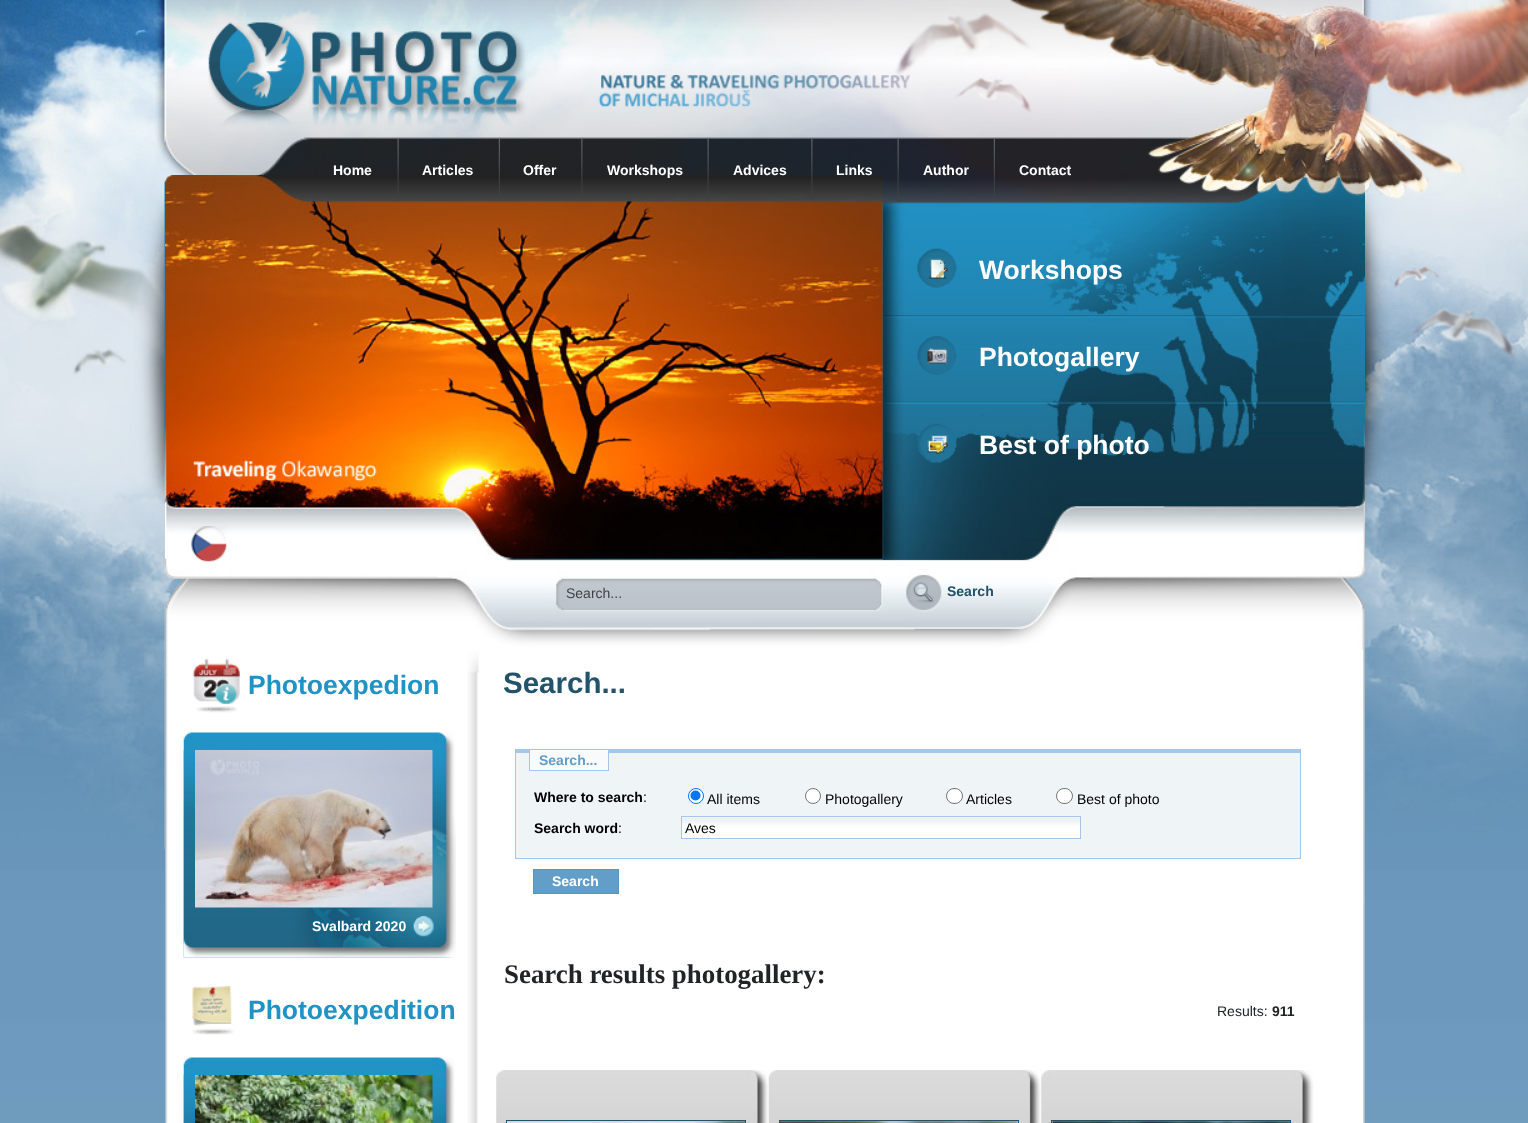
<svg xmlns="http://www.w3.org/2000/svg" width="1528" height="1123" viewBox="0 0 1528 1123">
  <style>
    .t1 { font: bold 14px Liberation Sans; fill: #fff; }
    .t2 { font: bold 26.5px Liberation Sans; fill: #fff; }
    .t3 { font: 14px Liberation Sans; fill: #414141; }
    .t4 { font: bold 14px Liberation Sans; fill: #21536b; }
    .t5 { font: bold 26.5px Liberation Sans; fill: #2192c5; }
    .t6 { font: bold 29.5px Liberation Sans; fill: #21536b; }
    .t7 { font: bold 14px Liberation Sans; fill: #639ec8; }
    .t8 { font: bold 14px Liberation Sans; fill: #000; }
    .t9 { font: 14px Liberation Sans; fill: #000; }
    .t10 { font: bold 26.9px Liberation Serif; fill: #212326; }
    .t11 { font: 14px Liberation Sans; fill: #212326; }
    .t12 { font: bold 14px Liberation Sans; fill: #212326; }
  </style>
  <rect width="100%" height="100%" fill="#fff"/>
  <image x="0" y="848" width="1528" height="275" href="images/1.png"/>
  <image x="0" y="0" width="1528" height="849" href="images/2.png"/>
  <image x="165" y="0" width="1200" height="650" href="images/3.png"/>
  <image x="208" y="22" width="322" height="110" href="images/4.png"/>
  <image x="598" y="75" width="312" height="32" href="images/5.png"/>
  <image x="165" y="175" width="718" height="384" href="images/13.png"/>
  <text x="333" y="175" class="t1">Home</text>
  <image x="397" y="139" width="2" height="63" href="images/6.png"/>
  <text x="422" y="175" class="t1">Articles</text>
  <image x="498" y="139" width="2" height="63" href="images/7.png"/>
  <text x="523" y="175" class="t1">Offer</text>
  <image x="581" y="139" width="2" height="63" href="images/8.png"/>
  <text x="607" y="175" class="t1">Workshops</text>
  <image x="707" y="139" width="2" height="63" href="images/9.png"/>
  <text x="733" y="175" class="t1">Advices</text>
  <image x="811" y="139" width="2" height="63" href="images/10.png"/>
  <text x="836" y="175" class="t1">Links</text>
  <image x="897" y="139" width="2" height="62" href="images/11.png"/>
  <text x="923" y="175" class="t1">Author</text>
  <image x="993" y="139" width="2" height="62" href="images/12.png"/>
  <text x="1019" y="175" class="t1">Contact</text>
  <image x="917" y="248" width="40" height="40" href="images/14.png"/>
  <image x="927" y="258" width="21" height="21" href="images/15.png"/>
  <text x="979" y="279" class="t2">Workshops</text>
  <image x="917" y="336" width="40" height="39" href="images/16.png"/>
  <image x="927" y="347" width="21" height="17" href="images/17.png"/>
  <text x="979" y="366" class="t2">Photogallery</text>
  <image x="917" y="423" width="40" height="40" href="images/18.png"/>
  <image x="927" y="435" width="21" height="19" href="images/19.png"/>
  <text x="979" y="454" class="t2">Best of photo</text>
  <image x="191" y="526" width="36" height="36" href="images/20.png"/>
  <text x="566" y="598" class="t3">Search...</text>
  <text x="947" y="596" class="t4">Search</text>
  <image x="165" y="650" width="1200" height="473" href="images/21.png"/>
  <rect x="1362" y="650" width="1" height="473" fill="#fff"/>
  <image x="467" y="672" width="11" height="451" href="images/22.png"/>
  <image x="192" y="658" width="48" height="55" href="images/23.png"/>
  <text x="248" y="694" class="t5">Photoexpedion</text>
  <image x="183" y="732" width="272" height="226" href="images/24.png"/>
  <image x="183" y="750" width="273" height="208" href="images/25.png"/>
  <image x="195" y="750" width="238" height="158" href="images/26.png"/>
  <image x="413" y="916" width="21" height="21" href="images/27.png"/>
  <text x="312" y="931" class="t1">Svalbard 2020</text>
  <image x="192" y="986" width="42" height="49" href="images/28.png"/>
  <text x="248" y="1019" class="t5">Photoexpedition</text>
  <image x="183" y="1057" width="272" height="66" href="images/29.png"/>
  <image x="183" y="1075" width="268" height="48" href="images/30.png"/>
  <image x="195" y="1075" width="238" height="48" href="images/31.png"/>
  <image x="467" y="650" width="12" height="23" href="images/32.png"/>
  <text x="503" y="693" class="t6">Search...</text>
  <rect x="516" y="753" width="784" height="105" fill="#eff4f7"/>
  <rect x="515" y="749" width="786" height="4" fill="#a5c6ea"/>
  <rect x="1300" y="749" width="1" height="110" fill="#a5c6ea"/>
  <rect x="515" y="858" width="786" height="1" fill="#a5c6ea"/>
  <rect x="515" y="749" width="1" height="110" fill="#a5c6ea"/>
  <rect x="529.5" y="749.5" width="79" height="21" fill="#f8fafb" stroke="#a5c6ea"/>
  <text x="539" y="765" class="t7">Search...</text>
  <text x="534" y="802" class="t8">Where to search</text>
  <text x="643" y="802" class="t9">:</text>
  <circle cx="696" cy="796" r="7.5" fill="#fff" stroke="#0075ff"/>
  <circle cx="695.5" cy="795.5" r="5" fill="#0075ff"/>
  <text x="707" y="804" class="t9">All items</text>
  <circle cx="813" cy="796" r="7.5" fill="#fff" stroke="#767676"/>
  <text x="825" y="804" class="t9">Photogallery</text>
  <rect x="946.5" y="788.5" width="16" height="15" rx="7.5" fill="#fff" stroke="#767676"/>
  <text x="966" y="804" class="t9">Articles</text>
  <rect x="1056.5" y="788.5" width="16" height="15" rx="7.5" fill="#fff" stroke="#767676"/>
  <text x="1077" y="804" class="t9">Best of photo</text>
  <text x="534" y="833" class="t8">Search word</text>
  <text x="618" y="833" class="t9">:</text>
  <rect x="682" y="817" width="398" height="21" fill="#fff"/>
  <image x="682" y="817" width="398" height="9" href="images/33.png"/>
  <rect x="681.5" y="816.5" width="399" height="22" fill="none" stroke="#a5c6ea"/>
  <text x="685" y="833" class="t9">Aves</text>
  <rect x="533.5" y="869.5" width="85" height="24" fill="#639ec8" stroke="#5b96bf"/>
  <text x="552" y="886" class="t1">Search</text>
  <text x="504" y="983" class="t10">Search results photogallery:</text>
  <text x="1217" y="1016" class="t11">Results:</text>
  <text x="1272" y="1016" class="t12">911</text>
  <image x="496" y="1070" width="273" height="53" href="images/34.png"/>
  <rect x="506.5" y="1120.5" width="239" height="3" fill="none" stroke="#21536b"/>
  <image x="507" y="1121" width="238" height="2" href="images/35.png"/>
  <image x="768" y="1070" width="273" height="53" href="images/36.png"/>
  <rect x="779.5" y="1120.5" width="239" height="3" fill="none" stroke="#21536b"/>
  <image x="780" y="1121" width="238" height="2" href="images/37.png"/>
  <image x="1041" y="1070" width="273" height="53" href="images/38.png"/>
  <rect x="1051.5" y="1120.5" width="239" height="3" fill="none" stroke="#21536b"/>
  <image x="1052" y="1121" width="238" height="2" href="images/39.png"/>
</svg>
